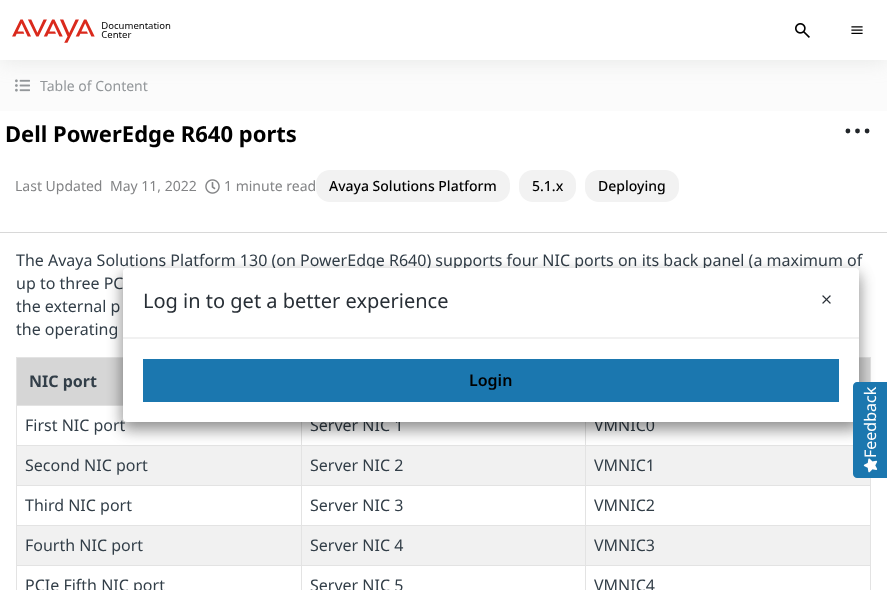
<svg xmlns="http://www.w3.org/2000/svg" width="887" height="590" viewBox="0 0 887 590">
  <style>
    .t1 { font: 14px Noto Sans; fill: #93979a; }
    .t2 { font: bold 22px Noto Sans; fill: #000; }
    .t3 { font: 14px Noto Sans; fill: #838486; }
    .t4 { font: 500 14px Noto Sans; fill: #000; }
    .t5 { font: 16px Noto Sans; fill: #323e48; }
    .t6 { font: bold 16px Noto Sans; fill: #323e48; }
    .t7 { font: 20px Noto Sans; fill: #282f36; }
    .t8 { font: 600 16px Noto Sans; fill: #000; }
    .t9 { font: 16px Noto Sans; fill: #fff; }
  </style>
  <rect width="100%" height="100%" fill="#fff"/>
  <rect x="0" y="60" width="887" height="51" fill="#fbfbfb"/>
  <image x="15" y="79" width="15" height="13" href="images/4.png"/>
  <rect x="0" y="2" width="887" height="60" fill="#b5b7b340" filter="blur(10px)"/>
  <rect x="0" y="0" width="887" height="60" fill="#fff"/>
  <image x="12" y="19" width="159" height="24" href="images/1.png"/>
  <image x="795" y="23" width="15" height="15" href="images/2.png"/>
  <image x="851" y="26" width="12" height="8" href="images/3.png"/>
  <text x="40" y="91" class="t1">Table of Content</text>
  <rect x="0" y="232" width="887" height="1" fill="#d8d8d8"/>
  <text x="5" y="142" class="t2">Dell PowerEdge R640 ports</text>
  <circle cx="847.9" cy="131" r="2.4" fill="#212529"/>
  <circle cx="857.5" cy="131" r="2.4" fill="#212529"/>
  <circle cx="867.1" cy="131" r="2.4" fill="#212529"/>
  <text x="15" y="191" class="t3">Last Updated</text>
  <text x="110" y="191" class="t3">May 11, 2022</text>
  <image x="205" y="179" width="15" height="15" href="images/5.png"/>
  <text x="224" y="191" class="t3">1 minute read</text>
  <rect x="316" y="170" width="194" height="32" rx="14" fill="#f2f2f2"/>
  <text x="329" y="191" class="t4">Avaya Solutions Platform</text>
  <rect x="519" y="170" width="57" height="32" rx="14" fill="#f2f2f2"/>
  <text x="532" y="191" class="t4">5.1.x</text>
  <rect x="585" y="170" width="94" height="32" rx="14" fill="#f2f2f2"/>
  <text x="598" y="191" class="t4">Deploying</text>
  <text x="16" y="266" class="t5">The Avaya Solutions Platform 130 (on PowerEdge R640) supports four NIC ports on its back panel (a maximum of</text>
  <text x="16" y="289" class="t5">up to three PC</text>
  <text x="16" y="312" class="t5">the external p</text>
  <text x="16" y="335" class="t5">the operating</text>
  <rect x="17" y="358" width="106" height="47" fill="#d6d6d6"/>
  <rect x="16" y="357" width="107" height="1" fill="#e3e3e3"/>
  <rect x="16" y="405" width="107" height="1" fill="#e3e3e3"/>
  <rect x="585" y="445" width="268" height="1" fill="#e3e3e3"/>
  <rect x="17" y="446" width="853" height="39" fill="#f1f1f1"/>
  <rect x="585" y="485" width="286" height="1" fill="#e3e3e3"/>
  <rect x="585" y="525" width="286" height="1" fill="#e3e3e3"/>
  <rect x="17" y="526" width="853" height="39" fill="#f1f1f1"/>
  <rect x="585" y="565" width="286" height="1" fill="#e3e3e3"/>
  <rect x="585" y="565" width="1" height="25" fill="#e3e3e3"/>
  <rect x="301" y="565" width="285" height="1" fill="#e3e3e3"/>
  <rect x="585" y="525" width="1" height="41" fill="#e3e3e3"/>
  <rect x="301" y="525" width="285" height="1" fill="#e3e3e3"/>
  <rect x="585" y="485" width="1" height="41" fill="#e3e3e3"/>
  <rect x="301" y="485" width="285" height="1" fill="#e3e3e3"/>
  <rect x="585" y="445" width="1" height="41" fill="#e3e3e3"/>
  <rect x="301" y="445" width="285" height="1" fill="#e3e3e3"/>
  <rect x="301" y="565" width="1" height="25" fill="#e3e3e3"/>
  <rect x="16" y="565" width="286" height="1" fill="#e3e3e3"/>
  <rect x="301" y="525" width="1" height="41" fill="#e3e3e3"/>
  <rect x="16" y="525" width="286" height="1" fill="#e3e3e3"/>
  <rect x="301" y="485" width="1" height="41" fill="#e3e3e3"/>
  <rect x="16" y="485" width="286" height="1" fill="#e3e3e3"/>
  <rect x="301" y="445" width="1" height="41" fill="#e3e3e3"/>
  <rect x="16" y="445" width="286" height="1" fill="#e3e3e3"/>
  <rect x="16" y="565" width="1" height="25" fill="#e3e3e3"/>
  <rect x="16" y="525" width="1" height="41" fill="#e3e3e3"/>
  <rect x="16" y="485" width="1" height="41" fill="#e3e3e3"/>
  <rect x="16" y="445" width="1" height="41" fill="#e3e3e3"/>
  <rect x="16" y="405" width="1" height="41" fill="#e3e3e3"/>
  <rect x="16" y="357" width="1" height="49" fill="#e3e3e3"/>
  <text x="29" y="387" class="t6">NIC port</text>
  <rect x="859" y="358" width="11" height="24" fill="#d6d6d6"/>
  <rect x="859" y="357" width="12" height="1" fill="#e3e3e3"/>
  <rect x="870" y="357" width="1" height="25" fill="#e3e3e3"/>
  <text x="25" y="431" class="t5">First NIC port</text>
  <rect x="301" y="422" width="1" height="24" fill="#e3e3e3"/>
  <text x="310" y="431" class="t5">Server NIC 1</text>
  <rect x="585" y="422" width="1" height="24" fill="#e3e3e3"/>
  <text x="594" y="431" class="t5">VMNIC0</text>
  <text x="25" y="471" class="t5">Second NIC port</text>
  <text x="310" y="471" class="t5">Server NIC 2</text>
  <text x="594" y="471" class="t5">VMNIC1</text>
  <text x="25" y="511" class="t5">Third NIC port</text>
  <text x="310" y="511" class="t5">Server NIC 3</text>
  <rect x="870" y="565" width="1" height="25" fill="#e3e3e3"/>
  <rect x="870" y="525" width="1" height="41" fill="#e3e3e3"/>
  <rect x="870" y="478" width="1" height="48" fill="#e3e3e3"/>
  <text x="594" y="511" class="t5">VMNIC2</text>
  <text x="25" y="551" class="t5">Fourth NIC port</text>
  <text x="310" y="551" class="t5">Server NIC 4</text>
  <text x="594" y="551" class="t5">VMNIC3</text>
  <text x="25" y="591" class="t5">PCIe Fifth NIC port</text>
  <text x="310" y="591" class="t5">Server NIC 5</text>
  <text x="594" y="591" class="t5">VMNIC4</text>
  <rect x="123" y="273" width="736" height="154" rx="4" fill="#00000040" filter="blur(7.5px)"/>
  <rect x="123" y="276" width="736" height="154" rx="4" fill="#00000045" filter="blur(8px)"/>
  <rect x="123" y="268" width="736" height="154" rx="4" fill="#fff"/>
  <path d="M127 268H855C857 268 859 270 859 272V338H123V272C123 270 125 268 127 268Z" fill="#fff"/>
  <rect x="123" y="337" width="736" height="2" fill="#f1f1f1"/>
  <text x="143" y="308" class="t7">Log in to get a better experience</text>
  <image x="822" y="295" width="9" height="9" href="images/6.png"/>
  <rect x="143" y="359" width="696" height="43" fill="#1b77af"/>
  <text x="469" y="386" class="t8">Login</text>
  <path d="M853 474V386C853 384 855 382 857 382H887V478H857C855 478 853 476 853 474Z" fill="#1b77af"/>
  <text x="876" y="458" transform="rotate(-90 876 458)" class="t9">Feedback</text>
  <image x="863" y="458" width="15" height="15" href="images/7.png"/>
</svg>
